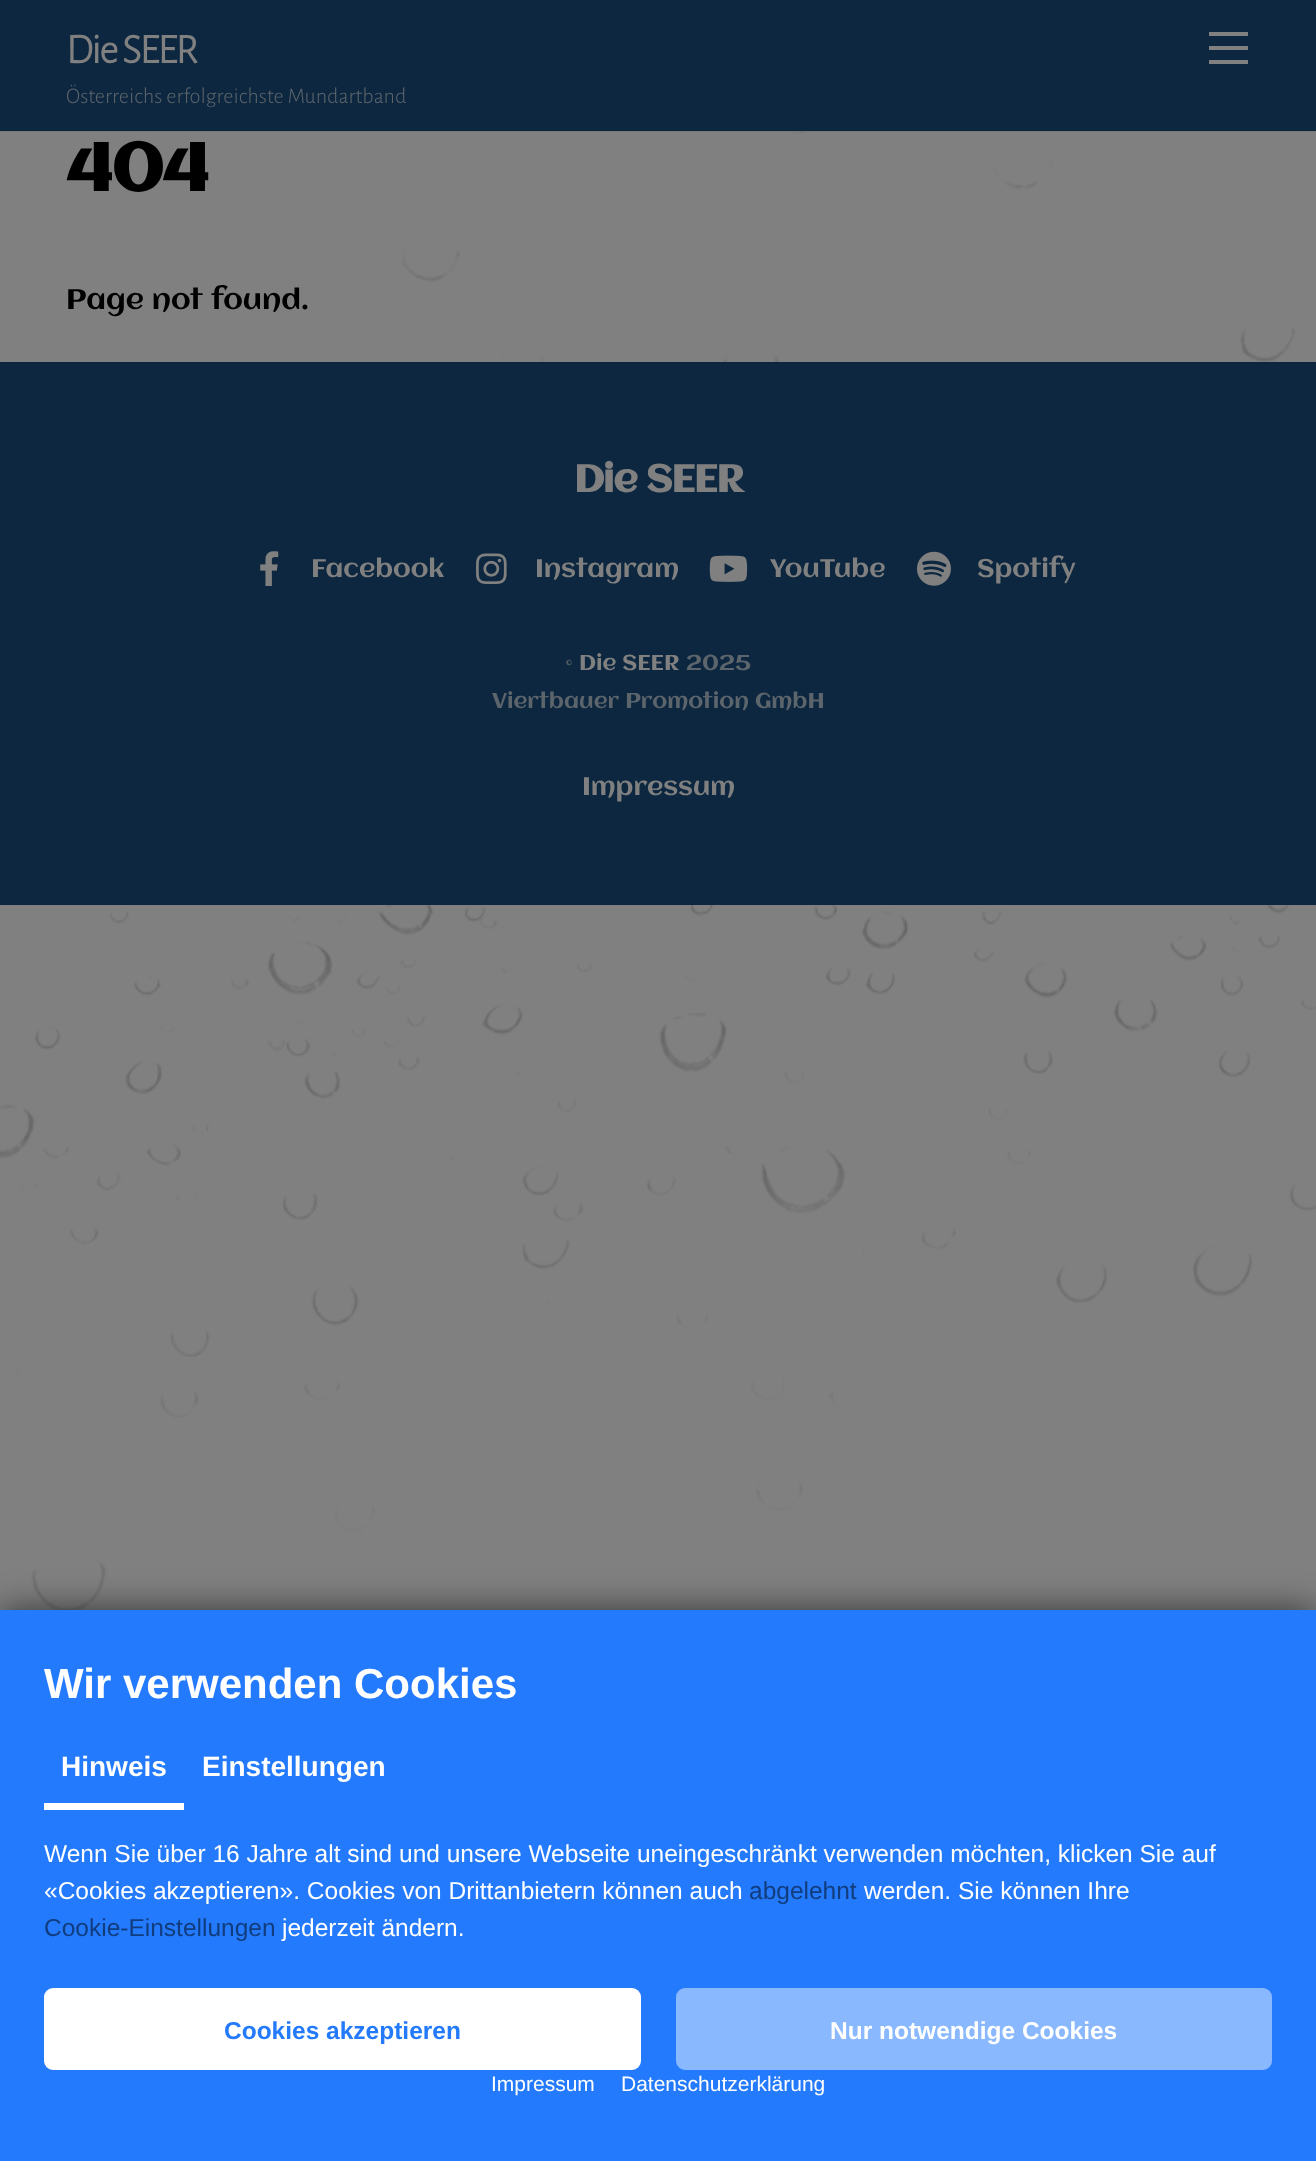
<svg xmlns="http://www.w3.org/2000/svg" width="1316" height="2161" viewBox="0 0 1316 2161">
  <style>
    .t1 { font: bold 42px Alegreya Sans; letter-spacing: -1.75px; fill: #808080; }
    .t2 { font: 300 22.4px Alegreya Sans; fill: #5d656c; }
    .t3 { font: bold 67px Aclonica; letter-spacing: -2px; fill: #000; }
    .t4 { font: 28px Aclonica; fill: #000; }
    .t5 { font: bold 38px Aclonica; letter-spacing: -1.25px; fill: #808080; }
    .t6 { font: 25.25px Aclonica; fill: #808080; }
    .t7 { font: 21.4px Aclonica; fill: #5d656c; }
    .t8 { font: 21.4px Aclonica; fill: #808080; }
    .t9 { font: bold 42px Liberation Sans; fill: #fff; }
    .t10 { font: bold 28px Liberation Sans; fill: #fff; }
    .t11 { font: 24.5px Liberation Sans; fill: #fff; }
    .t12 { font: 24.5px Liberation Sans; fill: #113c7d; }
    .t13 { font: bold 24.5px Liberation Sans; fill: #237afc; }
    .t14 { font: bold 24.5px Liberation Sans; fill: #fff; }
    .t15 { font: 21px Liberation Sans; fill: #fff; }
  </style>
  <rect width="100%" height="100%" fill="#808080"/>
  <rect x="0" y="0" width="1316" height="131" fill="#0c273f"/>
  <image x="0" y="131" width="1316" height="1479" href="images/5.png"/>
  <rect x="0" y="130" width="1316" height="2" fill="#0000000d"/>
  <text x="66" y="63" class="t1">Die SEER</text>
  <text x="66" y="103" class="t2">Österreichs erfolgreichste Mundartband</text>
  <rect x="1209" y="60" width="39" height="4" fill="#808080"/>
  <rect x="1209" y="32" width="39" height="4" fill="#808080"/>
  <rect x="1209" y="46" width="39" height="4" fill="#808080"/>
  <text x="66" y="191" class="t3">404</text>
  <text x="66" y="309" class="t4">Page not found.</text>
  <rect x="0" y="364" width="1316" height="541" fill="#0c273f"/>
  <rect x="0" y="362" width="1316" height="2" fill="#0c253c"/>
  <text x="574" y="492" class="t5">Die SEER</text>
  <image x="260" y="551" width="19" height="35" href="images/1.png"/>
  <text x="311" y="577" class="t6">Facebook</text>
  <image x="476" y="553" width="31" height="32" href="images/2.png"/>
  <text x="535" y="577" class="t6">Instagram</text>
  <image x="709" y="555" width="39" height="27" href="images/3.png"/>
  <text x="770" y="577" class="t6">YouTube</text>
  <image x="917" y="551" width="34" height="35" href="images/4.png"/>
  <text x="977" y="577" class="t6">Spotify</text>
  <text x="565" y="670" class="t7">©</text>
  <text x="579" y="670" class="t8">Die SEER</text>
  <text x="686" y="670" class="t7">2025</text>
  <text x="492" y="708" class="t7">Viertbauer Promotion GmbH</text>
  <text x="582" y="795" class="t6">Impressum</text>
  <rect x="0" y="1610" width="1316" height="551" fill="#00000099" filter="blur(17.5px)"/>
  <rect x="0" y="1610" width="1316" height="551" fill="#237afc"/>
  <text x="44" y="1698" class="t9">Wir verwenden Cookies</text>
  <rect x="44" y="1803" width="140" height="7" fill="#fff"/>
  <text x="61" y="1776" class="t10">Hinweis</text>
  <text x="202" y="1776" class="t10">Einstellungen</text>
  <text x="44" y="1862" class="t11">Wenn Sie über 16 Jahre alt sind und unsere Webseite uneingeschränkt verwenden möchten, klicken Sie auf</text>
  <text x="44" y="1899" class="t11">«Cookies akzeptieren». Cookies von Drittanbietern können auch</text>
  <text x="749" y="1899" class="t12">abgelehnt</text>
  <text x="864" y="1899" class="t11">werden. Sie können Ihre</text>
  <text x="44" y="1936" class="t12">Cookie-Einstellungen</text>
  <text x="282" y="1936" class="t11">jederzeit ändern.</text>
  <rect x="46" y="1990" width="593" height="78" rx="7" fill="#fff" stroke="#fff" stroke-width="4"/>
  <text x="224" y="2039" class="t13">Cookies akzeptieren</text>
  <rect x="678" y="1990" width="592" height="78" rx="7" fill="#89b8ff" stroke="#89b8ff" stroke-width="4"/>
  <text x="830" y="2039" class="t14">Nur notwendige Cookies</text>
  <text x="491" y="2091" class="t15">Impressum</text>
  <text x="621" y="2091" class="t15">Datenschutzerklärung</text>
</svg>
